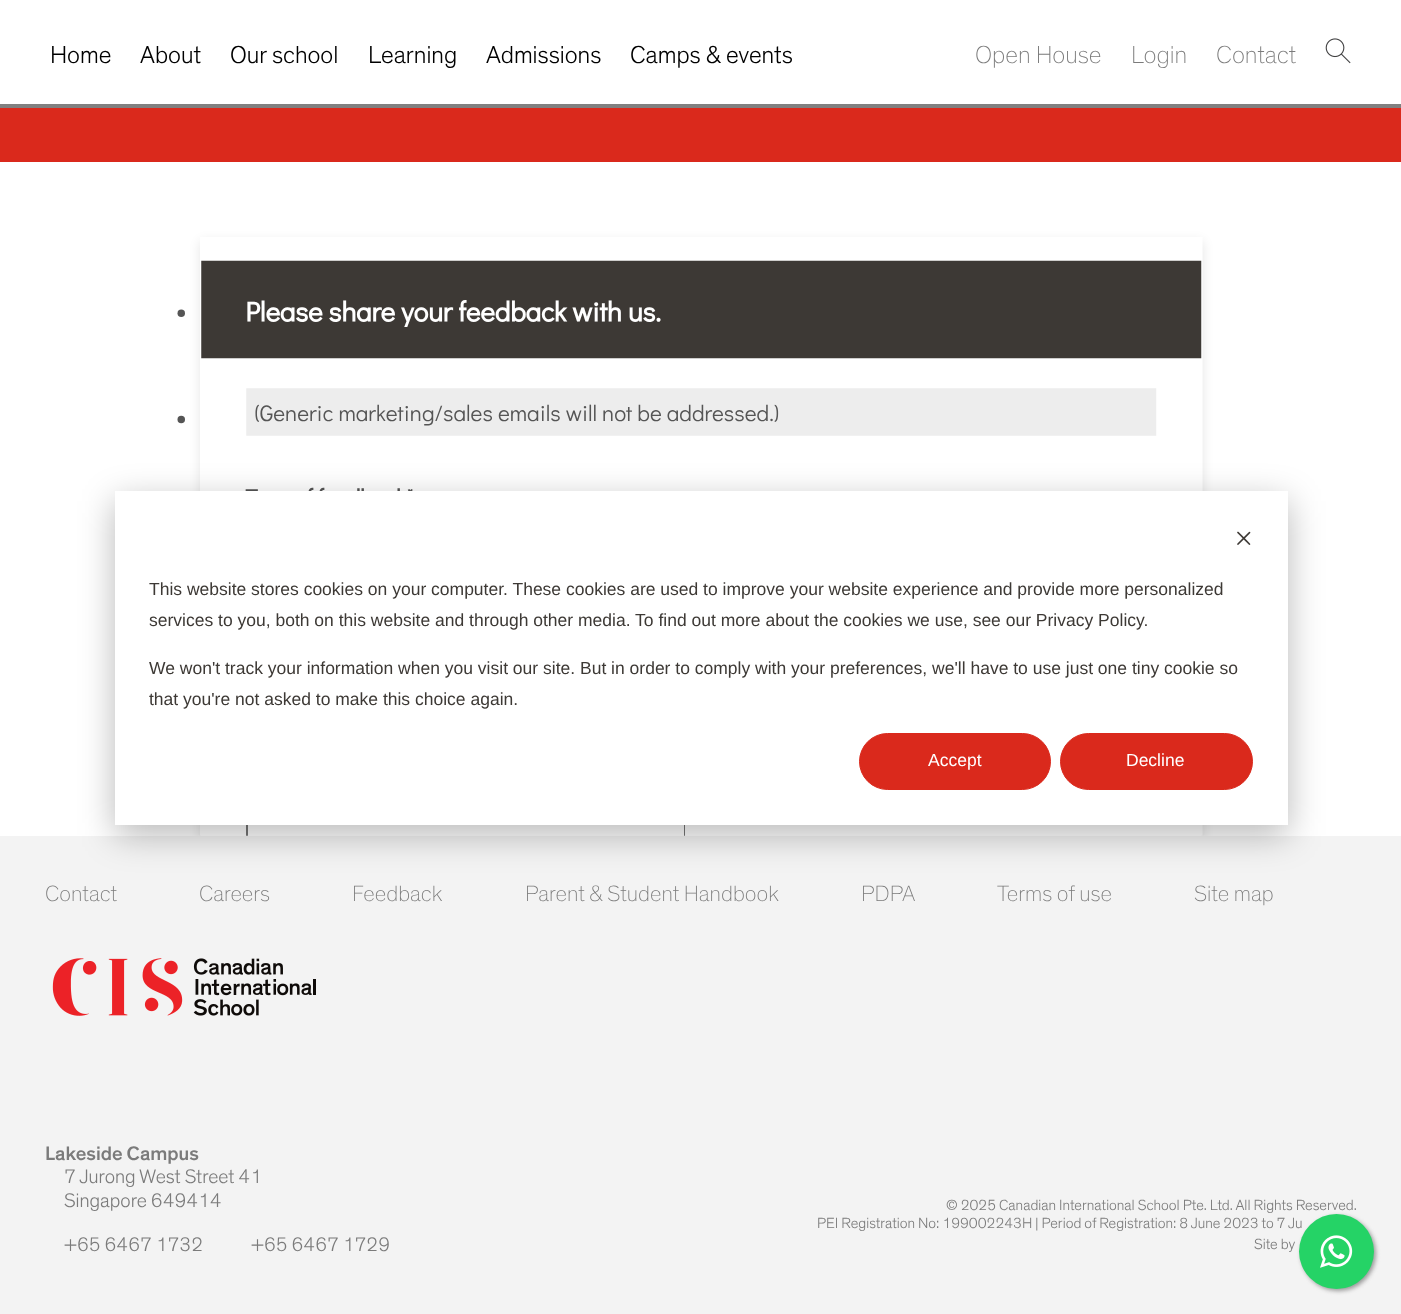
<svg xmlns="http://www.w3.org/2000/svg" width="1401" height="1314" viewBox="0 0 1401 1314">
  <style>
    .t1 { font: 300 25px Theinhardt; fill: #000; }
    .t2 { font: 100 25px Theinhardt; fill: #7b7b7b; }
    .t3 { font: 100 22.5px Theinhardt; fill: #7b7b7b; }
    .t4 { font: 500 20px Theinhardt; fill: #7b7b7b; }
    .t5 { font: 300 20px Theinhardt; fill: #7b7b7b; }
    .t6 { font: 300 15px Theinhardt; fill: #7b7b7b; }
    .t7 { font: 17.5px Liberation Sans; fill: #3d3935; }
    .t8 { font: 17.5px Liberation Sans; fill: #fff; }
  </style>
  <rect width="100%" height="100%" fill="#fff"/>
  <rect x="0" y="104" width="1401" height="4" fill="#808080"/>
  <text x="50" y="63" class="t1">Home</text>
  <text x="140" y="63" class="t1">About</text>
  <text x="230" y="63" class="t1">Our school</text>
  <text x="368" y="63" class="t1">Learning</text>
  <text x="486" y="63" class="t1">Admissions</text>
  <text x="630" y="63" class="t1">Camps &amp; events</text>
  <text x="975" y="63" class="t2">Open House</text>
  <text x="1131" y="63" class="t2">Login</text>
  <text x="1216" y="63" class="t2">Contact</text>
  <image x="1325" y="38" width="26" height="26" href="images/1.png"/>
  <rect x="0" y="108" width="1401" height="54" fill="#da291c"/>
  <image x="0" y="162" width="1401" height="674" href="images/2.png"/>
  <rect x="0" y="836" width="1401" height="478" fill="#f3f3f3"/>
  <text x="45" y="901" class="t3">Contact</text>
  <text x="199" y="901" class="t3">Careers</text>
  <text x="352" y="901" class="t3">Feedback</text>
  <text x="525" y="901" class="t3">Parent &amp; Student Handbook</text>
  <text x="861" y="901" class="t3">PDPA</text>
  <text x="997" y="901" class="t3">Terms of use</text>
  <text x="1194" y="901" class="t3">Site map</text>
  <image x="52" y="958" width="264" height="58" href="images/3.png"/>
  <text x="45" y="1160" class="t4">Lakeside Campus</text>
  <text x="64" y="1183" class="t5">7 Jurong West Street 41</text>
  <text x="64" y="1207" class="t5">Singapore 649414</text>
  <text x="64" y="1251" class="t5">+65 6467 1732</text>
  <text x="251" y="1251" class="t5">+65 6467 1729</text>
  <text x="946" y="1210" class="t6">© 2025 Canadian International School Pte. Ltd. All Rights Reserved.</text>
  <text x="817" y="1228" class="t6">PEI Registration No: 199002243H | Period of Registration: 8 June 2023 to 7 Ju</text>
  <text x="1254" y="1249" class="t6">Site by</text>
  <rect x="115" y="501" width="1173" height="334" fill="#00000047" filter="blur(17.5px)"/>
  <rect x="115" y="491" width="1173" height="334" fill="#fff"/>
  <image x="1237" y="531" width="14" height="14" href="images/4.png"/>
  <text x="149" y="595" class="t7">This website stores cookies on your computer. These cookies are used to improve your website experience and provide more personalized</text>
  <text x="149" y="626" class="t7">services to you, both on this website and through other media. To find out more about the cookies we use, see our Privacy Policy.</text>
  <text x="149" y="674" class="t7">We won't track your information when you visit our site. But in order to comply with your preferences, we'll have to use just one tiny cookie so</text>
  <text x="149" y="705" class="t7">that you're not asked to make this choice again.</text>
  <rect x="859.5" y="733.5" width="191" height="56" rx="28" fill="#da291c" stroke="#da291c"/>
  <text x="928" y="766" class="t8">Accept</text>
  <rect x="1060.5" y="733.5" width="192" height="56" rx="28" fill="#da291c" stroke="#da291c"/>
  <text x="1126" y="766" class="t8">Decline</text>
  <rect x="1301" y="1216" width="75" height="75" rx="37.5" fill="#999" filter="blur(2px)"/>
  <circle cx="1336.5" cy="1251.5" r="37.5" fill="#25d366"/>
  <image x="1320" y="1235" width="33" height="33" href="images/5.png"/>
</svg>
